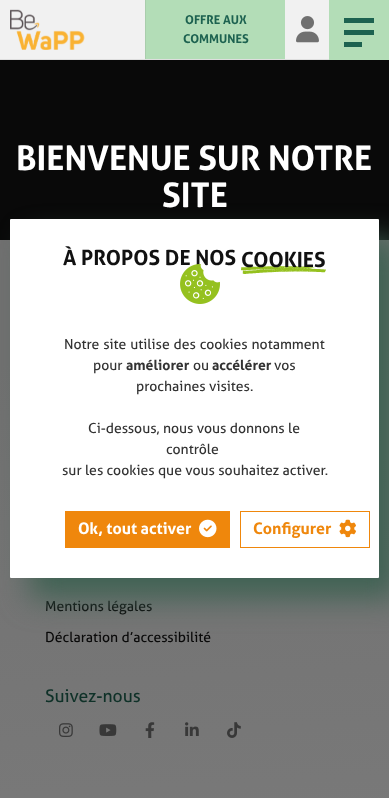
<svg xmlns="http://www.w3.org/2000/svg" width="389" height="798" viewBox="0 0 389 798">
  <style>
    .t1 { font: bold 12.25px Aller; fill: #1d6250; }
    .t2 { font: 14px Aller; fill: #090909; }
    .t3 { font: 17.5px Aller; fill: #0f3128; }
    .t4 { font: bold 34px Aller; fill: #fff; }
    .t5 { font: bold 21px Aller; fill: #111; }
    .t6 { font: 14px Aller; fill: #333; }
    .t7 { font: bold 14px Aller; fill: #333; }
    .t8 { font: bold 16px Aller; fill: #fff; }
    .t9 { font: bold 16px Aller; fill: #ef870c; }
  </style>
  <defs>
    <linearGradient id="g1" gradientUnits="userSpaceOnUse" x1="179" y1="231" x2="210" y2="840"><stop offset="0.2" stop-color="#707070"/><stop offset="1" stop-color="#797979"/></linearGradient>
  </defs>
  <rect width="100%" height="100%" fill="#090909"/>
  <rect x="0" y="0" width="329" height="59" fill="#f1f1f1"/>
  <rect x="0" y="59" width="329" height="1" fill="#dedede"/>
  <image x="10" y="9" width="75" height="41" href="images/1.png"/>
  <rect x="146" y="0" width="139" height="59" fill="#b3ddb7"/>
  <rect x="145" y="0" width="1" height="59" fill="#a9cdac"/>
  <text x="185" y="24" class="t1">OFFRE AUX</text>
  <text x="183" y="43" class="t1">COMMUNES</text>
  <image x="296" y="16" width="23" height="27" href="images/2.png"/>
  <rect x="329" y="0" width="60" height="60" fill="#b3ddb7"/>
  <rect x="344" y="18" width="30" height="5" fill="#1d6250"/>
  <rect x="344" y="30" width="30" height="5" fill="#1d6250"/>
  <rect x="344" y="42" width="18" height="5" fill="#1d6250"/>
  <rect x="0" y="240" width="389" height="558" fill="url(#g1)"/>
  <text x="45" y="611" class="t2">Mentions légales</text>
  <text x="45" y="642" class="t2">Déclaration d’accessibilité</text>
  <text x="45" y="702" class="t3">Suivez-nous</text>
  <image x="59" y="723" width="14" height="14" href="images/3.png"/>
  <image x="99" y="724" width="18" height="12" href="images/4.png"/>
  <image x="145" y="722" width="10" height="16" href="images/5.png"/>
  <image x="185" y="722" width="14" height="14" href="images/6.png"/>
  <image x="227" y="722" width="14" height="16" href="images/7.png"/>
  <rect x="30" y="239" width="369" height="359" rx="1" fill="#3f6253" filter="blur(15px)"/>
  <rect x="10" y="219" width="369" height="359" rx="1" fill="#fff"/>
  <text x="16" y="170" class="t4">BIENVENUE SUR NOTRE</text>
  <text x="162" y="207" class="t4">SITE</text>
  <text x="63" y="265" class="t5">À PROPOS DE NOS</text>
  <image x="241" y="266" width="85" height="8" href="images/8.png"/>
  <text x="241" y="267" class="t5">COOKIES</text>
  <image x="180" y="264" width="40" height="40" href="images/9.png"/>
  <text x="64" y="349" word-spacing="0.5" class="t6">Notre site utilise des cookies notamment</text>
  <text x="93" y="370" class="t6">pour</text>
  <text x="126" y="370" class="t7">améliorer</text>
  <text x="193" y="370" class="t6">ou</text>
  <text x="212" y="370" class="t7">accélérer</text>
  <text x="274" y="370" class="t6">vos</text>
  <text x="136" y="391" class="t6">prochaines visites.</text>
  <text x="88" y="433" class="t6">Ci-dessous, nous vous donnons le</text>
  <text x="166" y="454" class="t6">contrôle</text>
  <text x="62" y="475" class="t6">sur les cookies que vous souhaitez activer.</text>
  <rect x="65" y="511" width="165" height="37" fill="#ef870c"/>
  <text x="78" y="534" class="t8">Ok, tout activer</text>
  <image x="199" y="519" width="18" height="19" href="images/10.png"/>
  <rect x="240.5" y="511.5" width="129" height="36" fill="none" stroke="#ef870c"/>
  <text x="253" y="534" class="t9">Configurer</text>
  <image x="339" y="519" width="17" height="19" href="images/11.png"/>
</svg>
